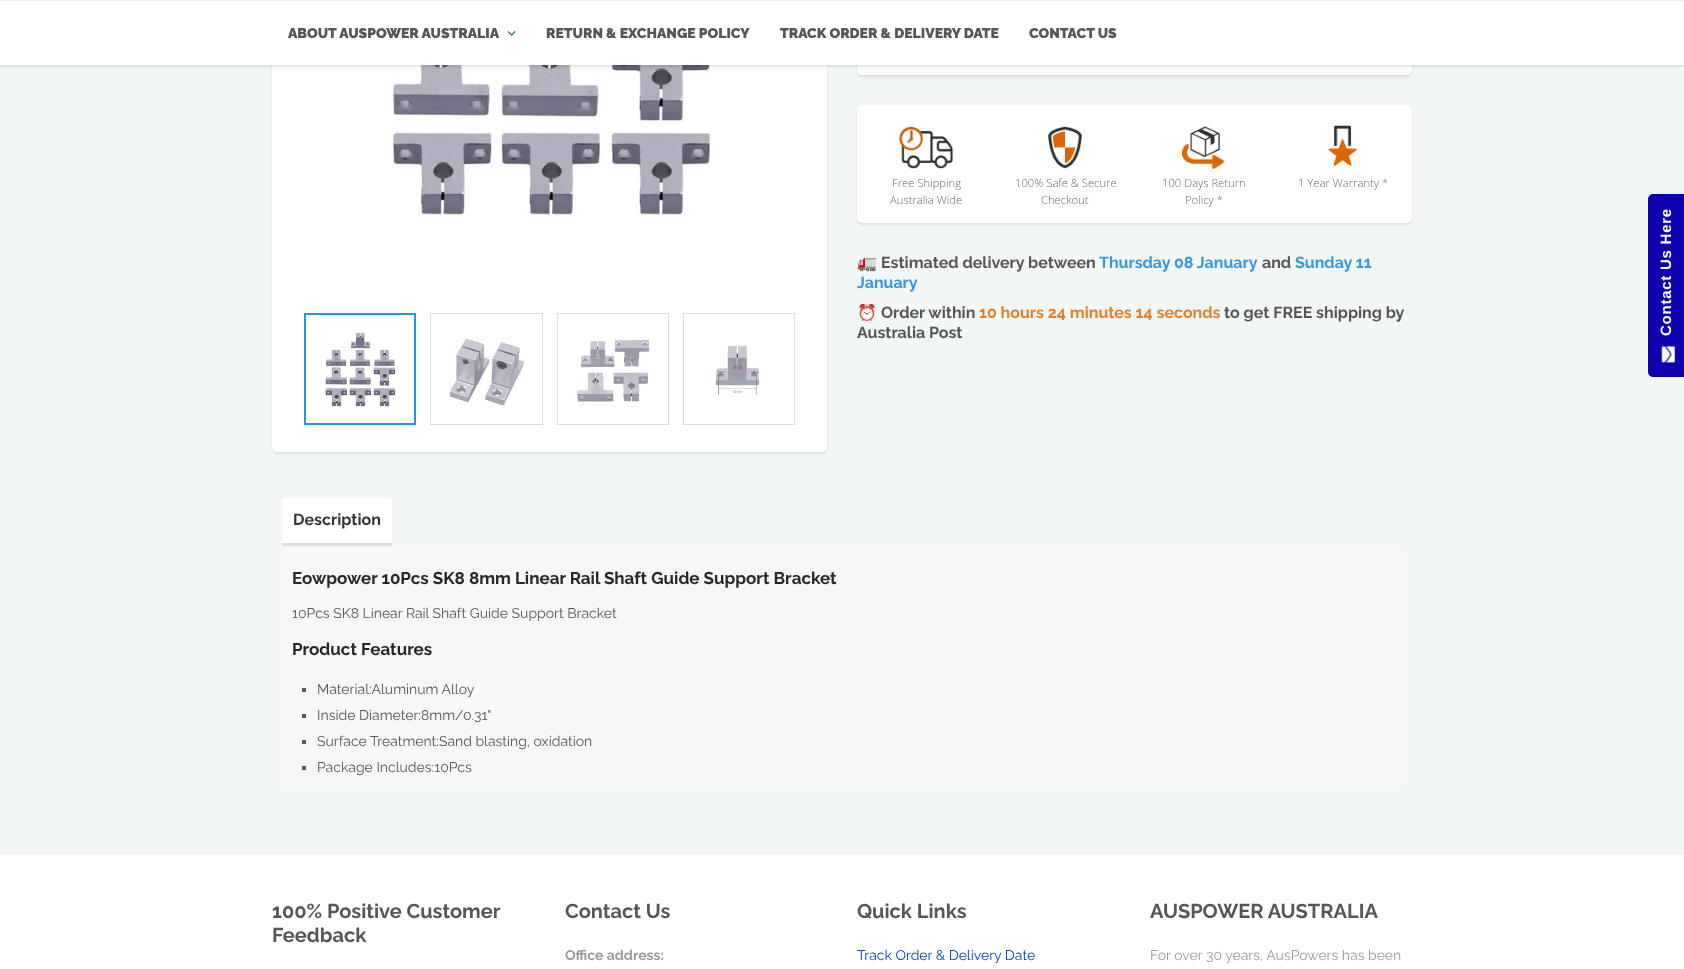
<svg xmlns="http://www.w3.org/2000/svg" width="1684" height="969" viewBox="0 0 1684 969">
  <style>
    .t1 { font: 900 14px Raleway; fill: #565656; }
    .t2 { font: 300 11.25px Open Sans; fill: #6d6868; }
    .t3 { font: bold 16px Noto Color Emoji; fill: #565656; }
    .t4 { font: bold 16px Raleway; fill: #565656; }
    .t5 { font: bold 16px Raleway; fill: #3598db; }
    .t6 { font: bold 16px Raleway; fill: #e67e23; }
    .t7 { font: bold 16px Raleway; fill: #333; }
    .t8 { font: bold 17px Raleway; fill: #282727; }
    .t9 { font: 14px Raleway; fill: #565656; }
    .t10 { font: bold 20px Raleway; fill: #565656; }
    .t11 { font: bold 14px Raleway; fill: #9a9a9a; }
    .t12 { font: 14px Raleway; fill: #004aad; }
    .t13 { font: 14px Raleway; fill: #9a9a9a; }
    .t14 { font: bold 15px Liberation Sans; letter-spacing: 0.75px; fill: #fff; }
  </style>
  <rect width="100%" height="100%" fill="#fff"/>
  <rect x="0" y="65" width="1684" height="788" fill="#f3f6f6"/>
  <rect x="272" y="-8" width="555" height="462" rx="5" fill="#0b191c1a" filter="blur(1px)"/>
  <rect x="272" y="-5" width="555" height="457" rx="5" fill="#fff"/>
  <image x="392" y="65" width="320" height="151" href="images/2.png"/>
  <rect x="857" y="-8" width="555" height="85" rx="5" fill="#0b191c1a" filter="blur(1px)"/>
  <rect x="857" y="-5" width="555" height="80" rx="5" fill="#fff"/>
  <rect x="0" y="2" width="1684" height="65" fill="#0b191c1f" filter="blur(1px)"/>
  <rect x="0" y="1" width="1684" height="64" fill="#fff"/>
  <rect x="0" y="0" width="1684" height="1" fill="#ecefef"/>
  <text x="288" y="38" class="t1">ABOUT AUSPOWER AUSTRALIA</text>
  <image x="507" y="31" width="9" height="5" href="images/1.png"/>
  <text x="546" y="38" class="t1">RETURN &amp; EXCHANGE POLICY</text>
  <text x="780" y="38" class="t1">TRACK ORDER &amp; DELIVERY DATE</text>
  <text x="1029" y="38" class="t1">CONTACT US</text>
  <rect x="305" y="314" width="110" height="110" fill="none" stroke="#2196f3" stroke-width="2"/>
  <image x="325" y="332" width="71" height="75" href="images/3.png"/>
  <rect x="430.5" y="313.5" width="112" height="111" fill="none" stroke="#dbdbdb"/>
  <image x="450" y="338" width="74" height="68" href="images/4.png"/>
  <rect x="557.5" y="313.5" width="111" height="111" fill="none" stroke="#dbdbdb"/>
  <image x="577" y="340" width="73" height="62" href="images/5.png"/>
  <rect x="683.5" y="313.5" width="111" height="111" fill="none" stroke="#dbdbdb"/>
  <image x="714" y="345" width="61" height="50" href="images/6.png"/>
  <rect x="857" y="107" width="555" height="118" rx="5" fill="#0b191c1a" filter="blur(1px)"/>
  <rect x="857" y="105" width="555" height="118" rx="5" fill="#fff"/>
  <image x="899" y="126" width="55" height="43" href="images/7.png"/>
  <text x="892" y="187" class="t2">Free Shipping</text>
  <text x="890" y="204" class="t2">Australia Wide</text>
  <image x="1048" y="126" width="34" height="43" href="images/8.png"/>
  <text x="1015" y="187" class="t2">100% Safe &amp; Secure</text>
  <text x="1041" y="204" class="t2">Checkout</text>
  <image x="1182" y="126" width="43" height="43" href="images/9.png"/>
  <text x="1162" y="187" class="t2">100 Days Return</text>
  <text x="1185" y="204" class="t2">Policy *</text>
  <image x="1328" y="125" width="29" height="42" href="images/10.png"/>
  <text x="1298" y="187" class="t2">1 Year Warranty *</text>
  <text x="857" y="268" class="t3">🚛</text>
  <text x="881" y="268" class="t4">Estimated delivery between</text>
  <text x="1099" y="268" class="t5">Thursday 08 January</text>
  <text x="1262" y="268" class="t4">and</text>
  <text x="1295" y="268" class="t5">Sunday 11</text>
  <text x="857" y="288" class="t5">January</text>
  <text x="857" y="318" class="t3">⏰</text>
  <text x="881" y="318" class="t4">Order within</text>
  <text x="979" y="318" class="t6">10 hours 24 minutes 14 seconds</text>
  <text x="1224" y="318" class="t4">to get FREE shipping by</text>
  <text x="857" y="338" class="t4">Australia Post</text>
  <path d="M282 543H1399C1400.5 543 1402 544.5 1402 546V785C1402 786.5 1400.5 788 1399 788H285C283.5 788 282 786.5 282 785Z" fill="#f7f7f7"/>
  <path d="M285 498H389C390.5 498 392 499.5 392 501V546H282V501C282 499.5 283.5 498 285 498Z" fill="#fff"/>
  <rect x="282" y="543" width="110" height="3" fill="#ddd"/>
  <text x="293" y="525" class="t7">Description</text>
  <text x="292" y="584" class="t8">Eowpower 10Pcs SK8 8mm Linear Rail Shaft Guide Support Bracket</text>
  <text x="292" y="618" class="t9">10Pcs SK8 Linear Rail Shaft Guide Support Bracket</text>
  <text x="292" y="655" class="t8">Product Features</text>
  <rect x="302" y="688" width="4" height="4" fill="#565656"/>
  <text x="317" y="694" class="t9">Material:Aluminum Alloy</text>
  <rect x="302" y="714" width="4" height="4" fill="#565656"/>
  <text x="317" y="720" class="t9">Inside Diameter:8mm/0.31"</text>
  <rect x="302" y="740" width="4" height="4" fill="#565656"/>
  <text x="317" y="746" class="t9">Surface Treatment:Sand blasting, oxidation</text>
  <rect x="302" y="766" width="4" height="4" fill="#565656"/>
  <text x="317" y="772" class="t9">Package Includes:10Pcs</text>
  <rect x="0" y="853" width="1684" height="1" fill="#ecefef"/>
  <text x="272" y="918" class="t10">100% Positive Customer</text>
  <text x="272" y="942" class="t10">Feedback</text>
  <text x="565" y="918" class="t10">Contact Us</text>
  <text x="565" y="960" class="t11">Office address:</text>
  <text x="857" y="918" class="t10">Quick Links</text>
  <text x="857" y="960" class="t12">Track Order &amp; Delivery Date</text>
  <text x="1150" y="918" class="t10">AUSPOWER AUSTRALIA</text>
  <text x="1150" y="960" class="t13">For over 30 years, AusPowers has been</text>
  <path d="M1648 372V199C1648 196 1651 194 1653 194H1684V377H1653C1651 377 1648 375 1648 372Z" fill="#0c00af"/>
  <text x="1671" y="336" transform="rotate(-90 1671 336)" class="t14">Contact Us Here</text>
  <image x="1661" y="345" width="14" height="18" href="images/11.png"/>
</svg>
